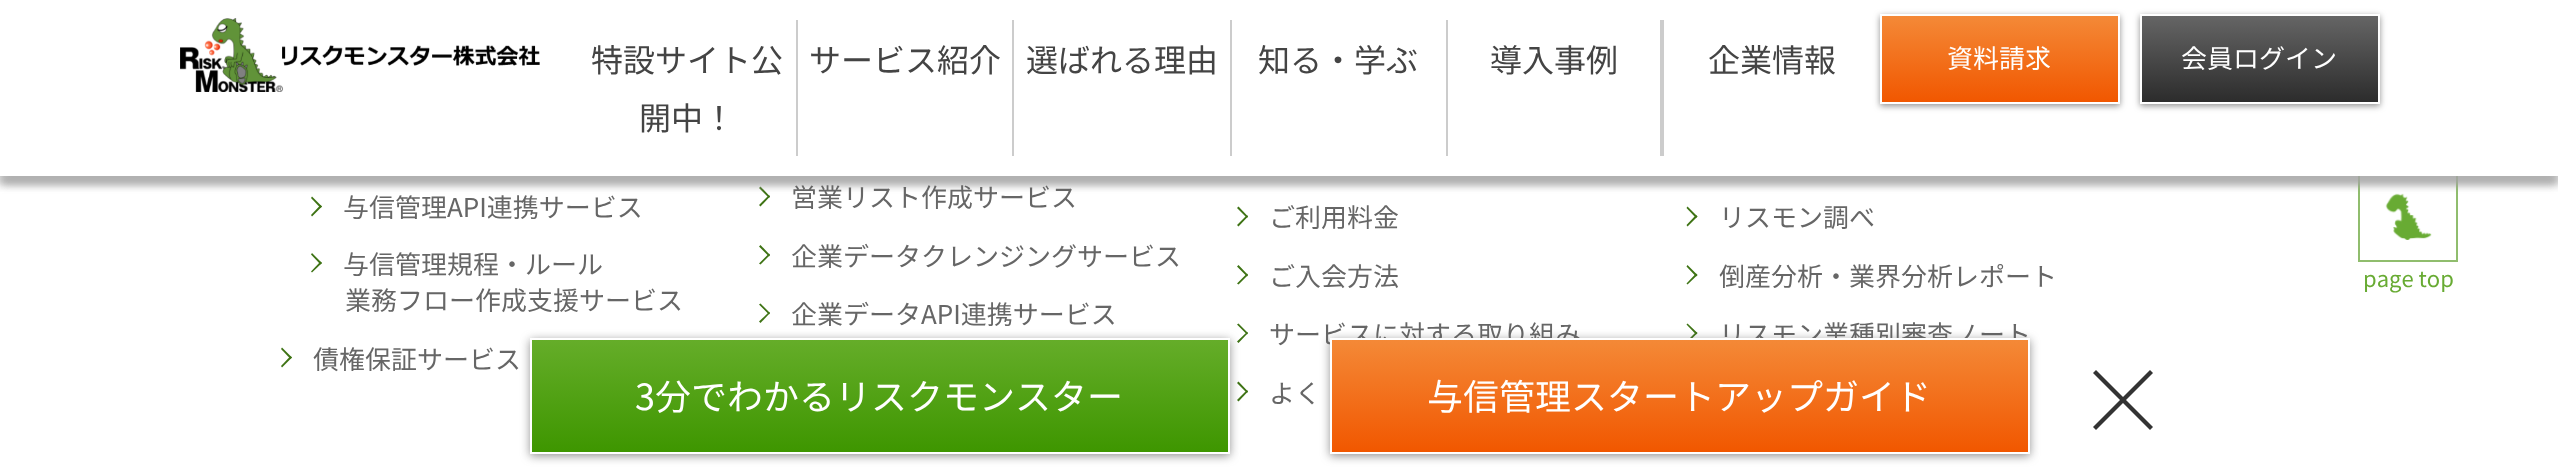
<svg xmlns="http://www.w3.org/2000/svg" width="2558" height="475" viewBox="0 0 2558 475">
  <style>
    .t1 { font: 32px 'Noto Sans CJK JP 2'; fill: #444; }
    .t2 { font: 26px Noto Sans CJK JP; fill: #fff; }
    .t3 { font: 26px Noto Sans CJK JP; fill: #666; }
    .t4 { font: 36px Noto Sans CJK JP; fill: #fff; }
    .t5 { font: 22px Noto Sans CJK JP; fill: #68ab33; }
  </style>
  <defs>
    <linearGradient id="g1" gradientUnits="userSpaceOnUse" x1="2000" y1="16" x2="2000" y2="102"><stop offset="0" stop-color="#f48937"/><stop offset="1" stop-color="#f15700"/></linearGradient>
    <linearGradient id="g2" gradientUnits="userSpaceOnUse" x1="2260" y1="16" x2="2260" y2="102"><stop offset="0" stop-color="#656565"/><stop offset="1" stop-color="#2c2c2c"/></linearGradient>
    <clipPath id="clip1"><rect x="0" y="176" width="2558" height="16"/></clipPath>
    <linearGradient id="g3" gradientUnits="userSpaceOnUse" x1="880" y1="340" x2="880" y2="452"><stop offset="0" stop-color="#65ad29"/><stop offset="1" stop-color="#3e9600"/></linearGradient>
    <linearGradient id="g4" gradientUnits="userSpaceOnUse" x1="1680" y1="340" x2="1680" y2="452"><stop offset="0" stop-color="#f48937"/><stop offset="1" stop-color="#f15700"/></linearGradient>
  </defs>
  <rect width="100%" height="100%" fill="#fff"/>
  <path d="M312 196.5L322 206.5L320.5 208L311 198Z" fill="#3e7314"/>
  <path d="M760.5 186.5L770 196.5L769 198L759 188Z" fill="#3e7314"/>
  <path d="M769 195L770 196.5L760.5 206.5L759 205ZM760.5 245L770 255L769 256.5L759 246.5Z" fill="#3e7314"/>
  <rect x="2359" y="173" width="98" height="88" fill="none" stroke="#90bd6d" stroke-width="2"/>
  <image x="2385" y="193" width="47" height="47" href="images/2.png"/>
  <rect x="0" y="4" width="2558" height="176" fill="#a4a4a4" filter="blur(6px)"/>
  <rect x="0" y="0" width="2558" height="176" fill="#fff"/>
  <image x="180" y="18" width="360" height="74" href="images/1.png"/>
  <text x="591" y="72" class="t1">特設サイト公</text>
  <text x="639" y="130" class="t1">開中！</text>
  <rect x="796" y="20" width="2" height="136" fill="#ccc"/>
  <text x="809" y="72" class="t1">サービス紹介</text>
  <rect x="1012" y="20" width="2" height="136" fill="#ccc"/>
  <text x="1026" y="72" class="t1">選ばれる理由</text>
  <rect x="1230" y="20" width="2" height="136" fill="#ccc"/>
  <text x="1258" y="72" class="t1">知る・学ぶ</text>
  <rect x="1660" y="20" width="4" height="136" fill="#ccc"/>
  <rect x="1446" y="20" width="2" height="136" fill="#ccc"/>
  <text x="1490" y="72" class="t1">導入事例</text>
  <text x="1708" y="72" class="t1">企業情報</text>
  <rect x="1880" y="16" width="240" height="90" fill="#636363b3" filter="blur(3px)"/>
  <rect x="1882" y="16" width="236" height="86" fill="url(#g1)"/>
  <rect x="1881" y="15" width="238" height="88" fill="none" stroke="#fff" stroke-width="2"/>
  <text x="1947" y="68" class="t2">資料請求</text>
  <rect x="2140" y="16" width="240" height="90" fill="#636363b3" filter="blur(3px)"/>
  <rect x="2142" y="16" width="236" height="86" fill="url(#g2)"/>
  <rect x="2141" y="15" width="238" height="88" fill="none" stroke="#fff" stroke-width="2"/>
  <text x="2181" y="68" class="t2">会員ログイン</text>
  <g clip-path="url(#clip1)">
    <rect x="0" y="176" width="2558" height="8" fill="#a4a4a4" filter="blur(4px)"/>
  </g>
  <path d="M320.5 205L322 206.5L312 216.5L311 215ZM312 253L322 263L320.5 264.5L311 254.5Z" fill="#3e7314"/>
  <text x="343" y="217" class="t3">与信管理API連携サービス</text>
  <path d="M320.5 261.5L322 263L312 272.5L311 271.5Z" fill="#3e7314"/>
  <text x="343" y="274" class="t3">与信管理規程・ルール</text>
  <text x="345" y="310" class="t3">業務フロー作成支援サービス</text>
  <path d="M282 347.5L292 357.5L290.5 359L281 349Z" fill="#3e7314"/>
  <path d="M290.5 356L292 357.5L282 367.5L281 366Z" fill="#3e7314"/>
  <text x="313" y="369" class="t3">債権保証サービス</text>
  <text x="791" y="207" class="t3">営業リスト作成サービス</text>
  <path d="M769 253.5L770 255L760.5 264.5L759 263.5ZM760.5 303.5L770 313L769 314.5L759 304.5Z" fill="#3e7314"/>
  <text x="791" y="266" class="t3">企業データクレンジングサービス</text>
  <path d="M769 312L770 313L760.5 323L759 321.5Z" fill="#3e7314"/>
  <text x="791" y="324" class="t3">企業データAPI連携サービス</text>
  <path d="M1238.5 206.5L1248 216.5L1247 218L1237 208Z" fill="#3e7314"/>
  <path d="M1247 215L1248 216.5L1238.5 226.5L1237 225ZM1238.5 265L1248 275L1247 276.5L1237 266.5Z" fill="#3e7314"/>
  <text x="1269" y="227" class="t3">ご利用料金</text>
  <path d="M1247 273.5L1248 275L1238.5 284.5L1237 283.5ZM1238.5 323.5L1248 333L1247 334.5L1237 324.5Z" fill="#3e7314"/>
  <text x="1269" y="286" class="t3">ご入会方法</text>
  <path d="M1247 332L1248 333L1238.5 343L1237 341.5ZM1238.5 381.5L1248 391.5L1247 393L1237 383Z" fill="#3e7314"/>
  <text x="1269" y="344" class="t3">サービスに対する取り組み</text>
  <path d="M1247 390L1248 391.5L1238.5 401.5L1237 400Z" fill="#3e7314"/>
  <text x="1269" y="403" class="t3">よく</text>
  <path d="M1687.5 206.5L1697.5 216.5L1696 218L1686.5 208Z" fill="#3e7314"/>
  <path d="M1696 215L1697.5 216.5L1687.5 226.5L1686.5 225ZM1687.5 265L1697.5 275L1696 276.5L1686.5 266.5Z" fill="#3e7314"/>
  <text x="1719" y="227" class="t3">リスモン調べ</text>
  <path d="M1696 273.5L1697.5 275L1687.5 284.5L1686.5 283.5ZM1687.5 323.5L1697.5 333L1696 334.5L1686.5 324.5Z" fill="#3e7314"/>
  <text x="1719" y="286" class="t3">倒産分析・業界分析レポート</text>
  <path d="M1696 332L1697.5 333L1687.5 343L1686.5 341.5Z" fill="#3e7314"/>
  <text x="1719" y="344" class="t3">リスモン業種別審査ノート</text>
  <rect x="530" y="340" width="700" height="116" fill="#636363b3" filter="blur(5px)"/>
  <rect x="532" y="340" width="696" height="112" fill="url(#g3)"/>
  <rect x="531" y="339" width="698" height="114" fill="none" stroke="#fff" stroke-width="2"/>
  <text x="635" y="410" class="t4">3分でわかるリスクモンスター</text>
  <rect x="1330" y="340" width="700" height="116" fill="#636363b3" filter="blur(5px)"/>
  <rect x="1332" y="340" width="696" height="112" fill="url(#g4)"/>
  <rect x="1331" y="339" width="698" height="114" fill="none" stroke="#fff" stroke-width="2"/>
  <text x="1427" y="410" class="t4">与信管理スタートアップガイド</text>
  <path d="M2096 370L2153 427L2150 430L2093 373Z" fill="#333"/>
  <path d="M2093 427L2150 370L2153 373L2096 430Z" fill="#333"/>
  <text x="2363" y="287" class="t5">page top</text>
</svg>
